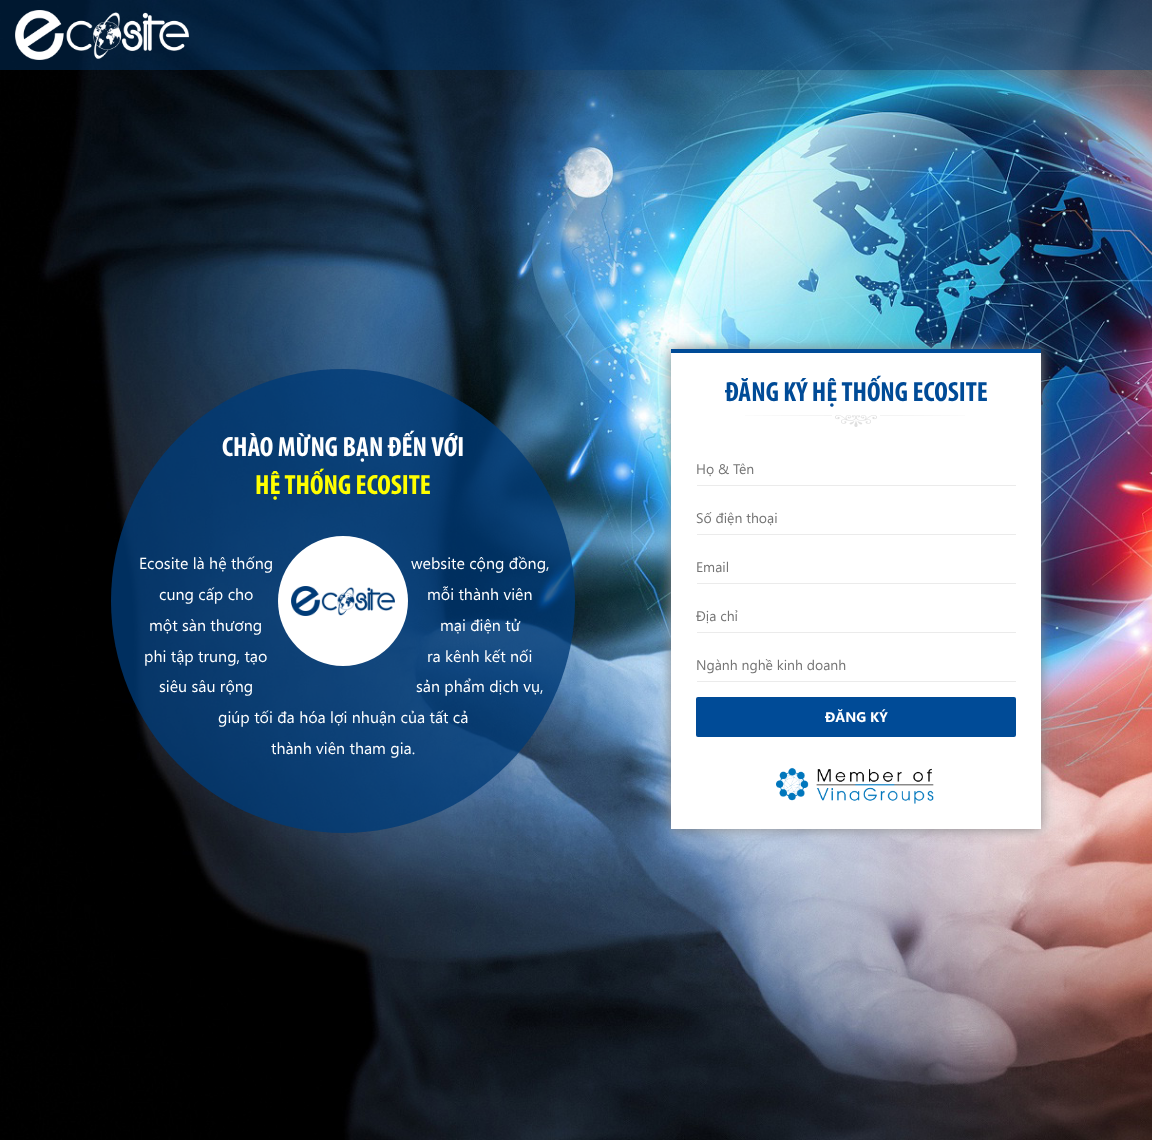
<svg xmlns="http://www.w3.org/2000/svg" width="1152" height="1140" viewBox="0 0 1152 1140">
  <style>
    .t1 { font: bold 28px Myriad; fill: #fff; }
    .t2 { font: bold 28px Myriad; fill: #ff0; }
    .t3 { font: 16px Segoe UI; fill: #fff; }
    .t4 { font: bold 28px Myriad; fill: #004b97; }
    .t5 { font: 14px Segoe UI; fill: #757575; }
    .t6 { font: bold 14px Segoe UI; fill: #fff; }
  </style>
  <rect width="100%" height="100%" fill="#fff"/>
  <image x="0" y="0" width="1152" height="1140" href="images/1.png"/>
  <rect x="0" y="0" width="1152" height="70" fill="#003b7766"/>
  <image x="15" y="10" width="174" height="50" href="images/2.png"/>
  <circle cx="343" cy="601" r="232" fill="#003b77cc"/>
  <text x="222" y="456" class="t1">CHÀO MỪNG BẠN ĐẾN VỚI</text>
  <text x="255" y="494" class="t2">HỆ THỐNG ECOSITE</text>
  <circle cx="343" cy="601" r="65" fill="#fff"/>
  <image x="291" y="586" width="104" height="30" href="images/3.png"/>
  <text x="139" y="569" class="t3">Ecosite là hệ thống</text>
  <text x="411" y="569" class="t3">website cộng đồng,</text>
  <text x="159" y="600" class="t3">cung cấp cho</text>
  <text x="427" y="600" class="t3">mỗi thành viên</text>
  <text x="149" y="631" class="t3">một sàn thương</text>
  <text x="440" y="631" class="t3">mại điện tử</text>
  <text x="144" y="662" class="t3">phi tập trung, tạo</text>
  <text x="427" y="662" class="t3">ra kênh kết nối</text>
  <text x="159" y="692" class="t3">siêu sâu rộng</text>
  <text x="416" y="692" class="t3">sản phẩm dịch vụ,</text>
  <text x="218" y="723" class="t3">giúp tối đa hóa lợi nhuận của tất cả</text>
  <text x="271" y="754" class="t3">thành viên tham gia.</text>
  <rect x="671" y="349" width="370" height="480" fill="#888" filter="blur(6.5px)"/>
  <rect x="671" y="353" width="370" height="476" fill="#fff"/>
  <rect x="671" y="349" width="370" height="4" fill="#004b97"/>
  <image x="745" y="415" width="220" height="12" href="images/4.png"/>
  <text x="725" y="401" class="t4">ĐĂNG KÝ HỆ THỐNG ECOSITE</text>
  <rect x="697" y="485" width="319" height="1" fill="#ebebeb"/>
  <text x="696" y="474" class="t5">Họ &amp; Tên</text>
  <rect x="697" y="534" width="319" height="1" fill="#ebebeb"/>
  <text x="696" y="523" class="t5">Số điện thoại</text>
  <rect x="697" y="583" width="319" height="1" fill="#ebebeb"/>
  <text x="696" y="572" class="t5">Email</text>
  <rect x="697" y="632" width="319" height="1" fill="#ebebeb"/>
  <text x="696" y="621" class="t5">Địa chỉ</text>
  <rect x="697" y="681" width="319" height="1" fill="#ebebeb"/>
  <text x="696" y="670" class="t5">Ngành nghề kinh doanh</text>
  <rect x="696" y="697" width="320" height="40" rx="2" fill="#004b97"/>
  <text x="825" y="722" class="t6">ĐĂNG KÝ</text>
  <image x="776" y="767" width="158" height="37" href="images/5.png"/>
</svg>
